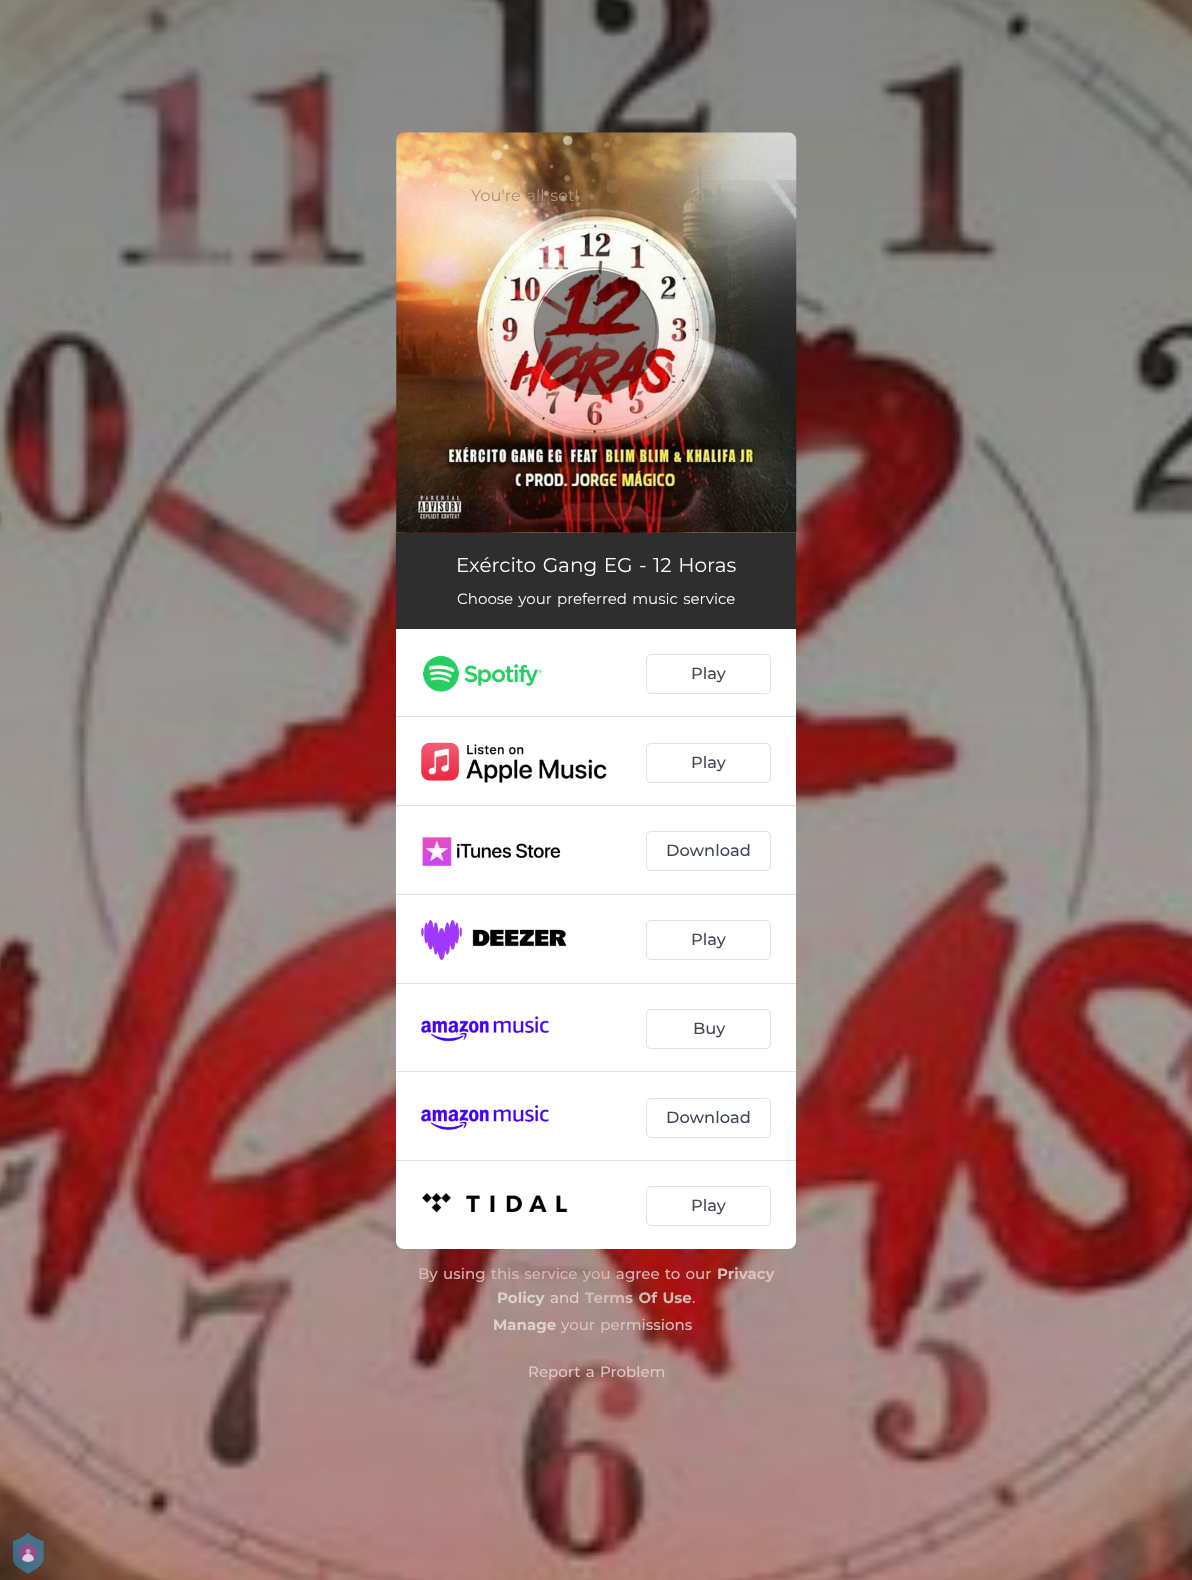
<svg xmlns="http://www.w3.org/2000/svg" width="1192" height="1580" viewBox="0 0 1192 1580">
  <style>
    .t1 { font: 16.25px Montserrat; fill: #b29171; }
    .t2 { font: 20px Montserrat; fill: #fff; }
    .t3 { font: 15px Montserrat; fill: #fff; }
    .t4 { font: 500 16.25px Montserrat; fill: #414754; }
    .t5 { font: 500 15px Montserrat; fill: #d6b9b7; }
    .t6 { font: bold 15px Montserrat; fill: #d8c2c0; }
    .t7 { font: bold 15px Montserrat; fill: #dbd2d0; }
    .t8 { font: 500 15px Montserrat; fill: #dbd2d0; }
    .t9 { font: bold 15px Montserrat; fill: #d6b9b7; }
    .t10 { font: 500 15px Montserrat; fill: #dd9fa1; }
    .t11 { font: 500 15px Montserrat; fill: #d8c2c0; }
    .t12 { font: 500 15px Montserrat; fill: #d9c9c7; }
  </style>
  <rect width="100%" height="100%" fill="#fff"/>
  <image x="0" y="0" width="1192" height="1580" href="images/1.png"/>
  <image x="396" y="132" width="401" height="401" href="images/2.png"/>
  <circle cx="596.5" cy="332.5" r="62.5" fill="#00000073"/>
  <text x="471" y="201" word-spacing="1.25" class="t1">You're all set!</text>
  <rect x="396" y="533" width="400" height="96" fill="#2e2e2e"/>
  <text x="456" y="572" word-spacing="1.25" class="t2">Exército Gang EG - 12 Horas</text>
  <text x="457" y="604" word-spacing="1.25" class="t3">Choose your preferred music service</text>
  <path d="M396 629H796V1241C796 1245.5 792.5 1249 788 1249H404C399.5 1249 396 1245.5 396 1241Z" fill="#fff"/>
  <rect x="396" y="716" width="400" height="1" fill="#e1e1e4"/>
  <image x="422" y="655" width="121" height="37" href="images/3.png"/>
  <rect x="646.5" y="654.5" width="124" height="39" rx="4.5" fill="none" stroke="#e1e1e4"/>
  <text x="691" y="679" class="t4">Play</text>
  <rect x="396" y="805" width="400" height="1" fill="#e1e1e4"/>
  <image x="421" y="742" width="186" height="41" href="images/4.png"/>
  <rect x="646.5" y="743.5" width="124" height="39" rx="4.5" fill="none" stroke="#e1e1e4"/>
  <text x="691" y="768" class="t4">Play</text>
  <rect x="396" y="894" width="400" height="1" fill="#e1e1e4"/>
  <image x="422" y="837" width="139" height="29" href="images/5.png"/>
  <rect x="646.5" y="831.5" width="124" height="39" rx="4.5" fill="none" stroke="#e1e1e4"/>
  <text x="666" y="856" class="t4">Download</text>
  <rect x="396" y="983" width="400" height="1" fill="#e1e1e4"/>
  <image x="421" y="920" width="146" height="40" href="images/6.png"/>
  <rect x="646.5" y="920.5" width="124" height="39" rx="4.5" fill="none" stroke="#e1e1e4"/>
  <text x="691" y="945" class="t4">Play</text>
  <rect x="396" y="1071" width="400" height="1" fill="#e1e1e4"/>
  <image x="421" y="1016" width="128" height="26" href="images/7.png"/>
  <rect x="646.5" y="1009.5" width="124" height="39" rx="4.5" fill="none" stroke="#e1e1e4"/>
  <text x="693" y="1034" class="t4">Buy</text>
  <rect x="396" y="1160" width="400" height="1" fill="#e1e1e4"/>
  <image x="421" y="1105" width="128" height="25" href="images/8.png"/>
  <rect x="646.5" y="1098.5" width="124" height="39" rx="4.5" fill="none" stroke="#e1e1e4"/>
  <text x="666" y="1123" class="t4">Download</text>
  <image x="422" y="1193" width="145" height="20" href="images/9.png"/>
  <rect x="646.5" y="1186.5" width="124" height="39" rx="4.5" fill="none" stroke="#e1e1e4"/>
  <text x="691" y="1211" class="t4">Play</text>
  <text x="418" y="1279" word-spacing="1.25" class="t5">By using this service you agree to our</text>
  <text x="717" y="1279" class="t6">Privacy</text>
  <text x="497" y="1303" class="t7">Policy</text>
  <text x="550" y="1303" class="t8">and</text>
  <text x="585" y="1303" word-spacing="1.25" class="t9">Terms Of Use</text>
  <text x="692" y="1303" class="t10">.</text>
  <text x="493" y="1330" class="t7">Manage</text>
  <text x="561" y="1330" word-spacing="1.25" class="t11">your permissions</text>
  <text x="528" y="1377" word-spacing="1.25" class="t12">Report a Problem</text>
  <image x="13" y="1533" width="31" height="41" href="images/10.png"/>
</svg>
